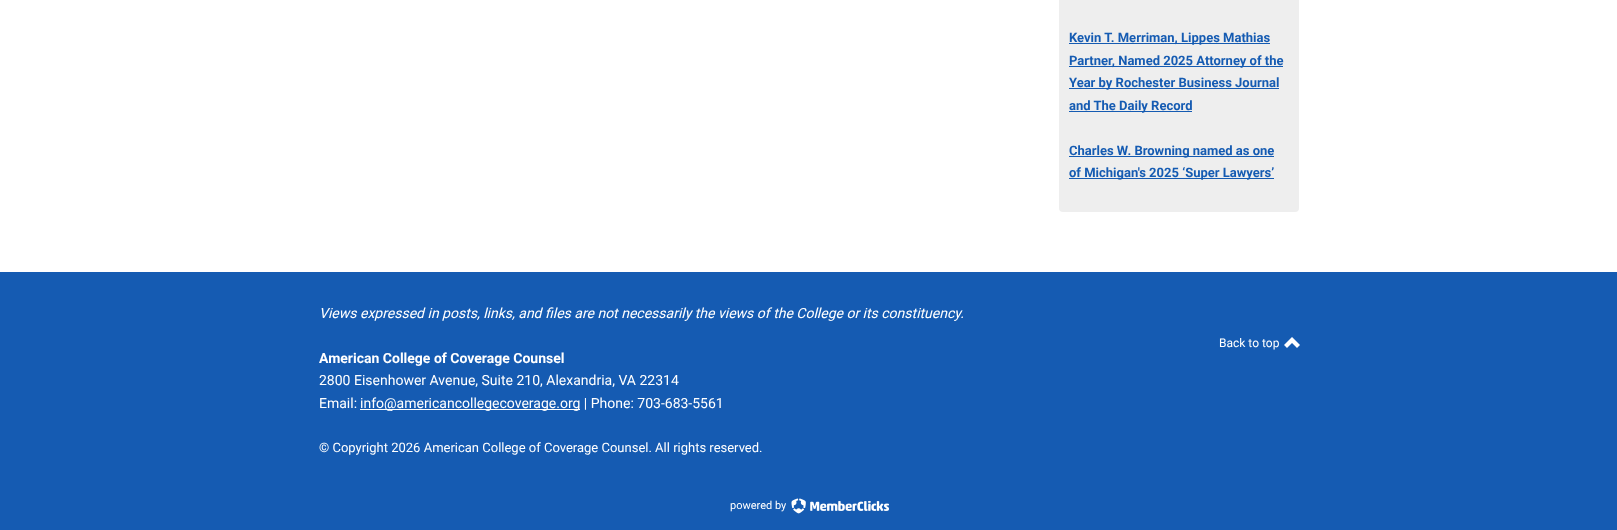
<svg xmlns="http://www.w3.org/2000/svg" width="1617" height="530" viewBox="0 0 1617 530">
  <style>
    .t1 { font: bold 13px Roboto; fill: #155bb2; }
    .t2 { font: italic 14px Roboto; fill: #fff; }
    .t3 { font: bold 14px Roboto; fill: #fff; }
    .t4 { font: 14px Roboto; fill: #fff; }
    .t5 { font: 13px Roboto; fill: #fff; }
    .t6 { font: 12px Roboto; fill: #fff; }
    .t7 { font: 11px Roboto; fill: #fff; }
  </style>
  <rect width="100%" height="100%" fill="#fff"/>
  <rect x="1059" y="-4" width="240" height="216" rx="4" fill="#eee"/>
  <rect x="1069" y="43" width="201" height="1" fill="#155bb2"/>
  <text x="1069" y="42" class="t1">Kevin T. Merriman, Lippes Mathias</text>
  <rect x="1069" y="66" width="214" height="1" fill="#155bb2"/>
  <text x="1069" y="65" class="t1">Partner, Named 2025 Attorney of the</text>
  <rect x="1069" y="88" width="210" height="1" fill="#155bb2"/>
  <text x="1069" y="87" class="t1">Year by Rochester Business Journal</text>
  <rect x="1069" y="111" width="123" height="1" fill="#155bb2"/>
  <text x="1069" y="110" class="t1">and The Daily Record</text>
  <rect x="1069" y="156" width="205" height="1" fill="#155bb2"/>
  <text x="1069" y="155" class="t1">Charles W. Browning named as one</text>
  <rect x="1069" y="178" width="205" height="1" fill="#155bb2"/>
  <text x="1069" y="177" class="t1">of Michigan's 2025 ‘Super Lawyers’</text>
  <rect x="0" y="272" width="1617" height="258" fill="#155bb2"/>
  <text x="319" y="318" class="t2">Views expressed in posts, links, and files are not necessarily the views of the College or its constituency.</text>
  <text x="319" y="363" class="t3">American College of Coverage Counsel</text>
  <text x="319" y="385" class="t4">2800 Eisenhower Avenue, Suite 210, Alexandria, VA 22314</text>
  <text x="319" y="408" class="t4">Email:</text>
  <rect x="360" y="409" width="220" height="1" fill="#fff"/>
  <text x="360" y="408" class="t4">info@americancollegecoverage.org | Phone: 703-683-5561</text>
  <text x="319" y="452" class="t5">© Copyright 2026 American College of Coverage Counsel. All rights reserved.</text>
  <text x="1219" y="347" class="t6">Back to top</text>
  <image x="1284" y="337" width="16" height="11" href="images/1.png"/>
  <text x="730" y="509" class="t7">powered by</text>
  <image x="791" y="498" width="15" height="16" href="images/2.png"/>
  <image x="810" y="500" width="79" height="11" href="images/3.png"/>
</svg>
